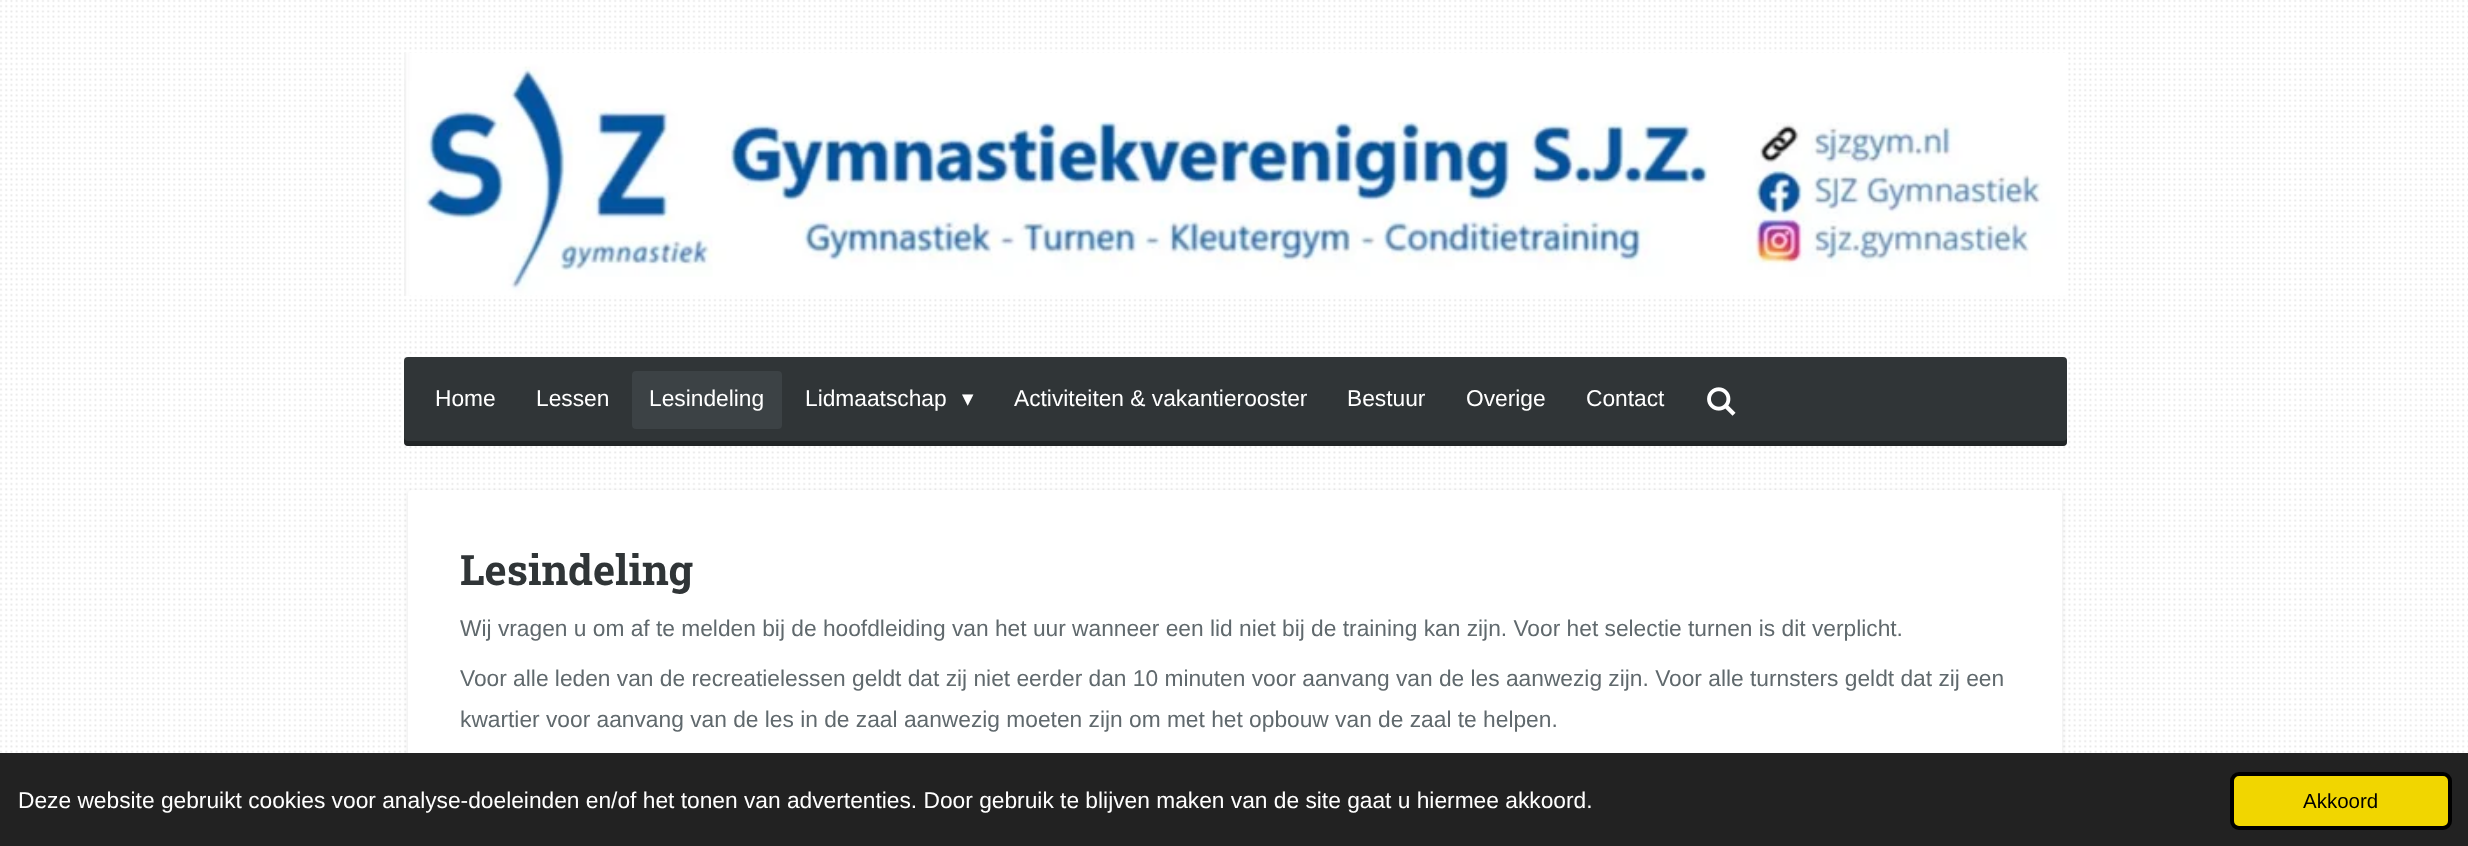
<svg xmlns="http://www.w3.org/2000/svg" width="2468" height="846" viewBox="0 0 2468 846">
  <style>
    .t1 { font: 22.75px Liberation Sans; fill: #fff; }
    .t2 { font: 22.75px DejaVu Sans; fill: #fff; }
    .t3 { font: bold 42px Roboto Slab; fill: #303537; }
    .t4 { font: 22.75px Liberation Sans; fill: #60696d; }
    .t5 { font: 20.5px Liberation Sans; fill: #000; }
  </style>
  <rect width="100%" height="100%" fill="#fff"/>
  <image x="0" y="0" width="2468" height="753" href="images/1.png"/>
  <image x="404" y="52" width="1662" height="244" href="images/2.png"/>
  <rect x="404" y="357" width="1663" height="89" rx="4" fill="#303537"/>
  <path d="M404 438V442C404 444 406 446 408 446H2063C2065 446 2067 444 2067 442V438C2067 439 2065 441 2063 441H408C406 441 404 439 404 438Z" fill="#0000004d"/>
  <text x="435" y="406" class="t1">Home</text>
  <text x="536" y="406" class="t1">Lessen</text>
  <rect x="632" y="371" width="150" height="58" rx="4" fill="#3c4245"/>
  <text x="649" y="406" class="t1">Lesindeling</text>
  <text x="805" y="406" class="t1">Lidmaatschap</text>
  <text x="962" y="406" class="t2">▾</text>
  <text x="1014" y="406" class="t1">Activiteiten &amp; vakantierooster</text>
  <text x="1347" y="406" class="t1">Bestuur</text>
  <text x="1466" y="406" class="t1">Overige</text>
  <text x="1586" y="406" class="t1">Contact</text>
  <image x="1707" y="387" width="29" height="29" href="images/3.png"/>
  <rect x="408" y="492" width="1654" height="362" fill="#0000001a" filter="blur(2.5px)"/>
  <rect x="408" y="490" width="1654" height="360" rx="4" fill="#fff"/>
  <text x="460" y="585" class="t3">Lesindeling</text>
  <text x="460" y="636" class="t4">Wij vragen u om af te melden bij de hoofdleiding van het uur wanneer een lid niet bij de training kan zijn. Voor het selectie turnen is dit verplicht.</text>
  <text x="460" y="686" class="t4">Voor alle leden van de recreatielessen geldt dat zij niet eerder dan 10 minuten voor aanvang van de les aanwezig zijn. Voor alle turnsters geldt dat zij een</text>
  <text x="460" y="727" class="t4">kwartier voor aanvang van de les in de zaal aanwezig moeten zijn om met het opbouw van de zaal te helpen.</text>
  <rect x="0" y="753" width="2468" height="93" fill="#222"/>
  <text x="18" y="808" class="t1">Deze website gebruikt cookies voor analyse-doeleinden en/of het tonen van advertenties. Door gebruik te blijven maken van de site gaat u hiermee akkoord.</text>
  <rect x="2232" y="774" width="218" height="54" rx="7" fill="#f1d600" stroke="#000" stroke-width="4"/>
  <text x="2303" y="808" class="t5">Akkoord</text>
</svg>
